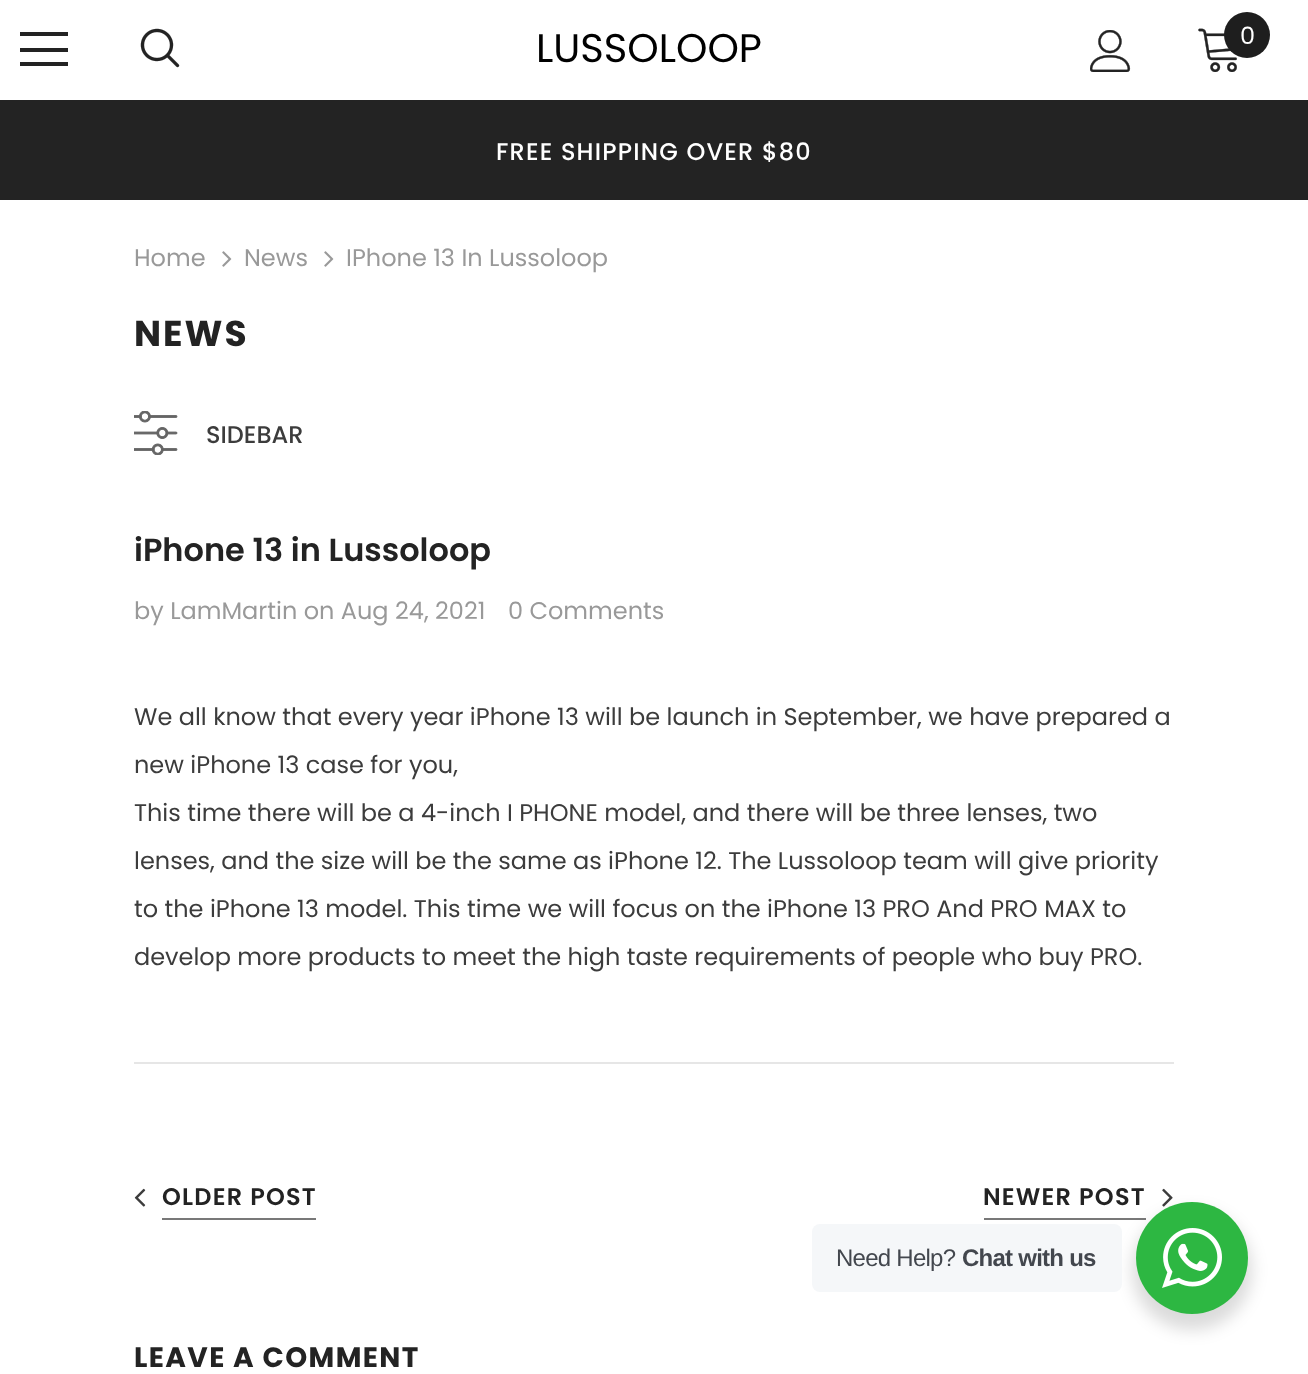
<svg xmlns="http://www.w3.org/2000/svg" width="1308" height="1374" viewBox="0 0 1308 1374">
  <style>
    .t1 { font: 40px Poppins; fill: #000; }
    .t2 { font: 24px Poppins; fill: #fff; }
    .t3 { font: 500 24px Poppins; letter-spacing: 1.2px; fill: #fff; }
    .t4 { font: 24px Poppins; fill: #999; }
    .t5 { font: bold 36px Poppins; letter-spacing: 2px; fill: #232323; }
    .t6 { font: 500 24px Poppins; fill: #3c3c3c; }
    .t7 { font: 600 32px Poppins; fill: #232323; }
    .t8 { font: 24px Poppins; fill: #3c3c3c; }
    .t9 { font: 600 24px Poppins; letter-spacing: 1.2px; fill: #232323; }
    .t10 { font: bold 28px Poppins; letter-spacing: 1.4px; fill: #232323; }
    .t11 { font: 24px Liberation Sans; letter-spacing: -0.75px; fill: #43474e; }
    .t12 { font: bold 24px Liberation Sans; letter-spacing: -0.75px; fill: #43474e; }
  </style>
  <rect width="100%" height="100%" fill="#fff"/>
  <rect x="20" y="32" width="48" height="4" fill="#232323"/>
  <rect x="20" y="48" width="48" height="4" fill="#232323"/>
  <rect x="20" y="62" width="48" height="4" fill="#232323"/>
  <image x="140" y="28" width="40" height="40" href="images/1.png"/>
  <text x="536" y="62" class="t1">LUSSOLOOP</text>
  <image x="1090" y="30" width="41" height="42" href="images/2.png"/>
  <image x="1198" y="28" width="39" height="44" href="images/3.png"/>
  <circle cx="1247" cy="35" r="23" fill="#1e1e1e"/>
  <text x="1240" y="44" class="t2">0</text>
  <rect x="0" y="100" width="1308" height="100" fill="#232323"/>
  <text x="496" y="160" class="t3">FREE SHIPPING OVER $80</text>
  <text x="134" y="266" class="t4">Home</text>
  <image x="222" y="251" width="10" height="16" href="images/4.png"/>
  <text x="244" y="266" class="t4">News</text>
  <image x="324" y="251" width="10" height="16" href="images/4.png"/>
  <text x="346" y="266" class="t4">IPhone 13 In Lussoloop</text>
  <text x="134" y="346" class="t5">NEWS</text>
  <image x="134" y="411" width="44" height="44" href="images/5.png"/>
  <text x="206" y="443" class="t6">SIDEBAR</text>
  <text x="134" y="561" class="t7">iPhone 13 in Lussoloop</text>
  <text x="134" y="619" class="t4">by LamMartin on Aug 24, 2021</text>
  <text x="508" y="619" class="t4">0 Comments</text>
  <text x="134" y="725" class="t8">We all know that every year iPhone 13 will be launch in September, we have prepared a</text>
  <text x="134" y="773" class="t8">new iPhone 13 case for you,</text>
  <text x="134" y="821" class="t8">This time there will be a 4-inch I PHONE model, and there will be three lenses, two</text>
  <text x="134" y="869" class="t8">lenses, and the size will be the same as iPhone 12. The Lussoloop team will give priority</text>
  <text x="134" y="917" class="t8">to the iPhone 13 model. This time we will focus on the iPhone 13 PRO And PRO MAX to</text>
  <text x="134" y="965" class="t8">develop more products to meet the high taste requirements of people who buy PRO.</text>
  <rect x="134" y="1062" width="1040" height="2" fill="#e6e6e6"/>
  <image x="134" y="1188" width="12" height="19" href="images/6.png"/>
  <rect x="162" y="1218" width="154" height="2" fill="#787878"/>
  <text x="162" y="1205" class="t9">OLDER POST</text>
  <rect x="984" y="1218" width="162" height="2" fill="#787878"/>
  <text x="983" y="1205" class="t9">NEWER POST</text>
  <image x="1162" y="1188" width="11" height="19" href="images/7.png"/>
  <text x="134" y="1367" class="t10">LEAVE A COMMENT</text>
  <rect x="1132" y="1210" width="120" height="120" rx="60" fill="#00000024" filter="blur(8px)"/>
  <rect x="812" y="1224" width="310" height="68" rx="8" fill="#f5f7f9"/>
  <text x="836" y="1266" class="t11">Need Help?</text>
  <text x="962" y="1266" class="t12">Chat with us</text>
  <circle cx="1192" cy="1258" r="56" fill="#2db742"/>
  <image x="1162" y="1228" width="60" height="60" href="images/8.png"/>
</svg>
